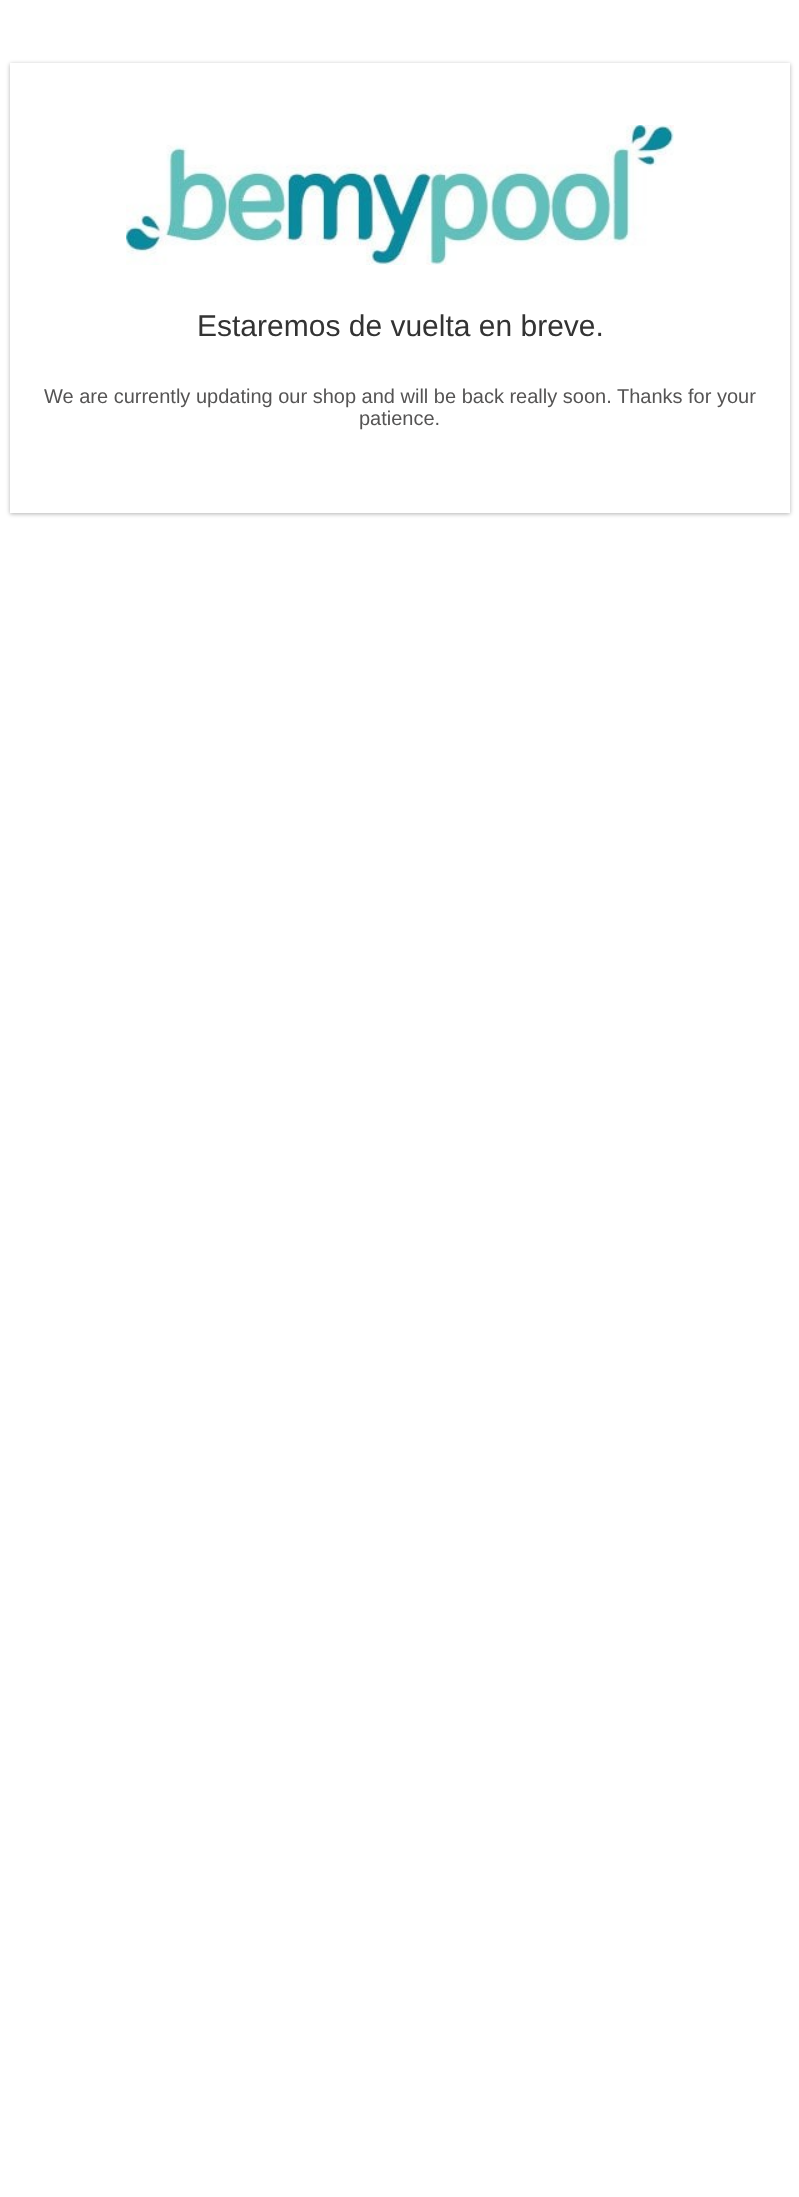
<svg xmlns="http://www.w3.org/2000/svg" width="799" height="2197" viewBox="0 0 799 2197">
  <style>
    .t1 { font: 30px Liberation Sans; fill: #333; }
    .t2 { font: 20px Liberation Sans; fill: #555454; }
  </style>
  <rect width="100%" height="100%" fill="#fff"/>
  <rect x="10" y="64" width="780" height="450" fill="#0000004d" filter="blur(2px)"/>
  <rect x="10" y="63" width="780" height="450" fill="#fff"/>
  <image x="126" y="125" width="548" height="140" href="images/1.png"/>
  <text x="197" y="336" class="t1">Estaremos de vuelta en breve.</text>
  <text x="44" y="403" class="t2">We are currently updating our shop and will be back really soon. Thanks for your</text>
  <text x="359" y="425" class="t2">patience.</text>
</svg>
